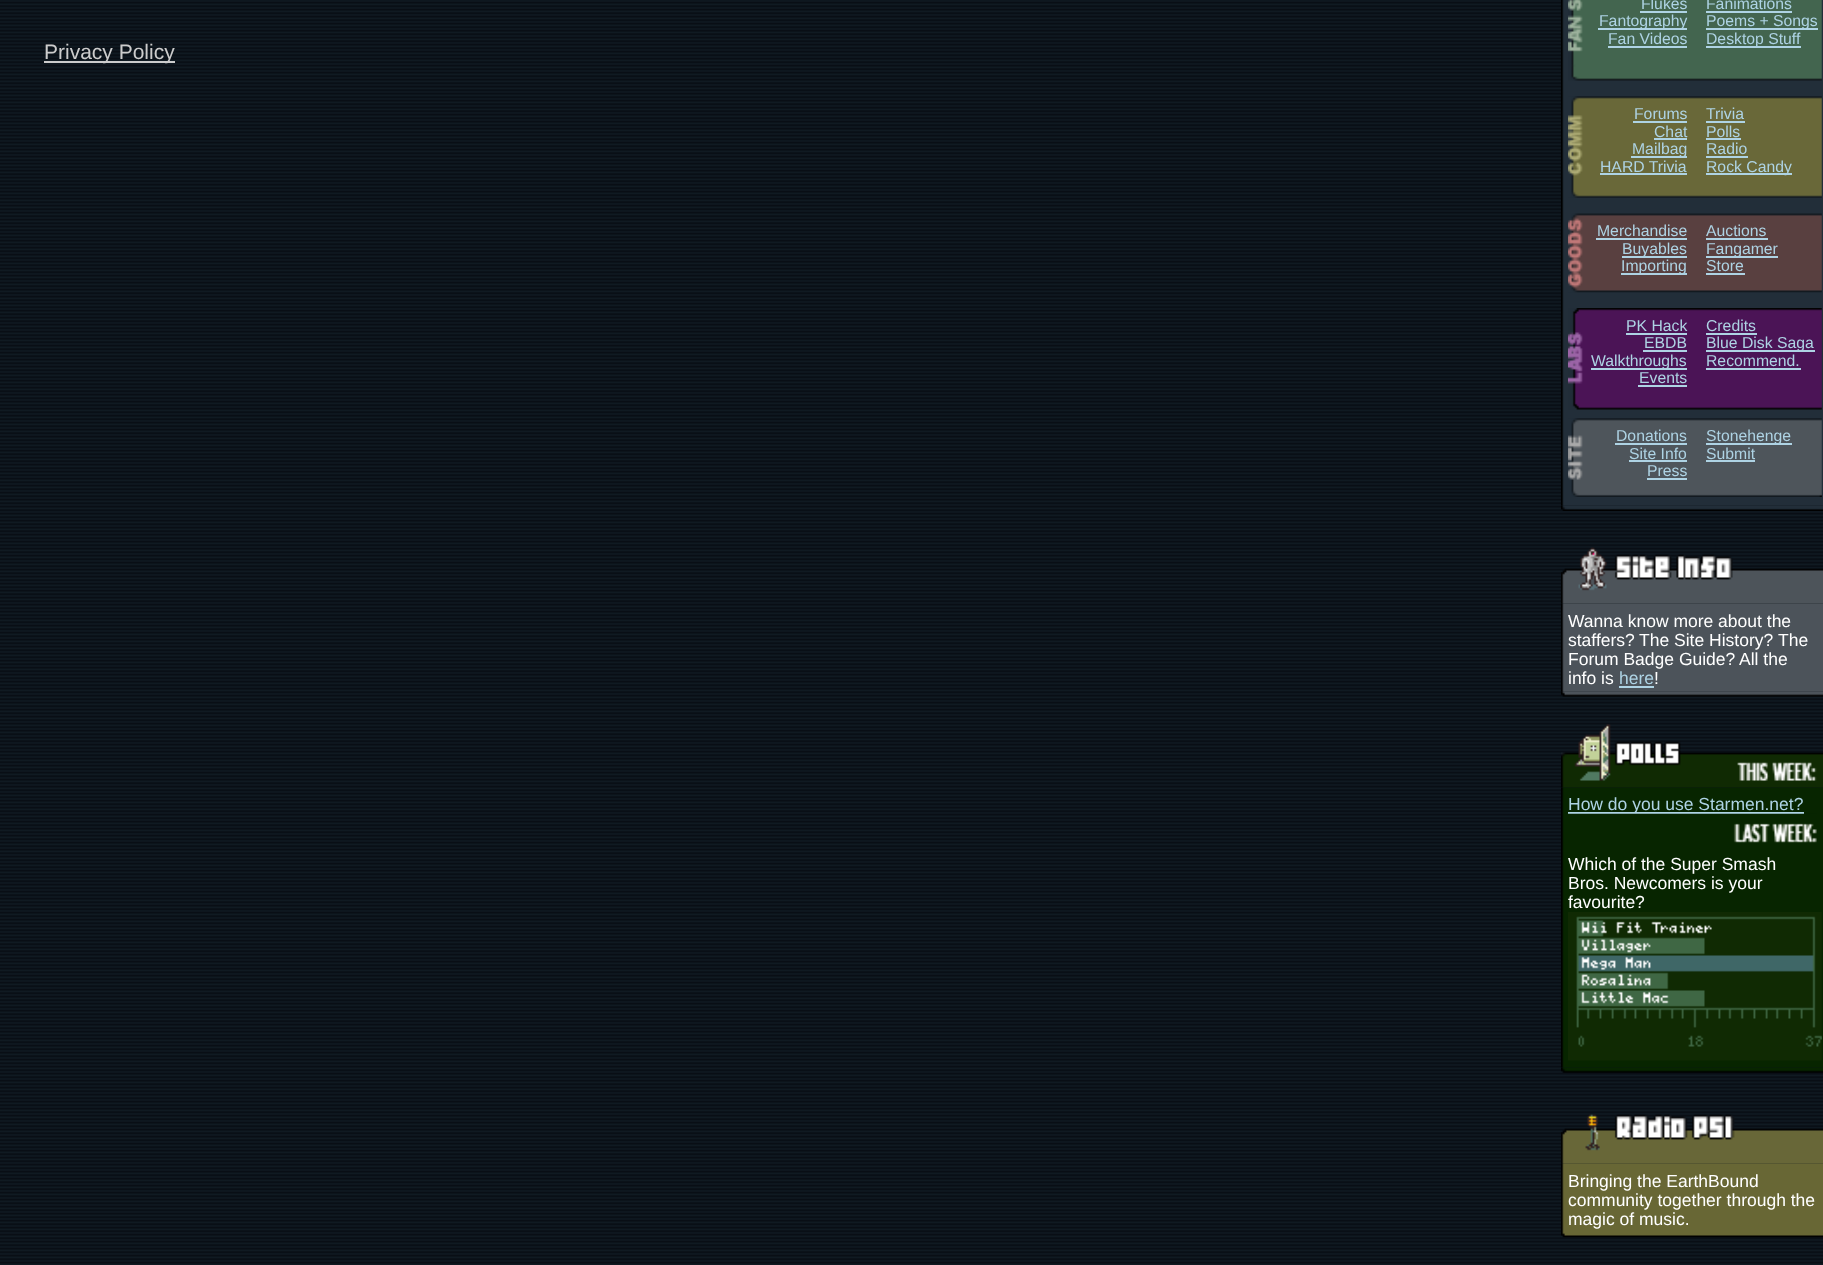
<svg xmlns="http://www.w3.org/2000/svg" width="1823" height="1265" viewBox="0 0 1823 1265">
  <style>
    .t1 { font: 21px Liberation Sans; fill: #ccc; }
    .t2 { font: 15.75px Liberation Sans; fill: #aed3e4; }
    .t3 { font: 17.5px Liberation Sans; fill: #fff; }
    .t4 { font: 17.5px Liberation Sans; fill: #aed3e4; }
  </style>
  <rect width="100%" height="100%" fill="#fff"/>
  <image x="0" y="0" width="1823" height="1265" href="images/1.png"/>
  <rect x="44" y="61" width="131" height="2" fill="#ccc"/>
  <text x="44" y="59" class="t1">Privacy Policy</text>
  <image x="1561" y="0" width="262" height="506" href="images/2.png"/>
  <image x="1568" y="0" width="254" height="81" href="images/3.png"/>
  <text x="1641" y="9" class="t2">Flukes</text>
  <rect x="1640" y="11" width="47" height="2" fill="#aed3e4"/>
  <text x="1706" y="9" class="t2">Fanimations</text>
  <rect x="1706" y="11" width="86" height="2" fill="#aed3e4"/>
  <rect x="1598" y="28" width="89" height="2" fill="#aed3e4"/>
  <text x="1599" y="26" class="t2">Fantography</text>
  <rect x="1706" y="28" width="112" height="2" fill="#aed3e4"/>
  <text x="1706" y="26" class="t2">Poems + Songs</text>
  <text x="1608" y="44" class="t2">Fan Videos</text>
  <rect x="1608" y="46" width="79" height="2" fill="#aed3e4"/>
  <rect x="1706" y="46" width="95" height="2" fill="#aed3e4"/>
  <text x="1706" y="44" class="t2">Desktop Stuff</text>
  <image x="1568" y="96" width="254" height="102" href="images/4.png"/>
  <text x="1634" y="119" class="t2">Forums</text>
  <rect x="1633" y="121" width="54" height="2" fill="#aed3e4"/>
  <text x="1706" y="119" class="t2">Trivia</text>
  <rect x="1706" y="121" width="39" height="2" fill="#aed3e4"/>
  <text x="1654" y="137" class="t2">Chat</text>
  <rect x="1654" y="138" width="33" height="2" fill="#aed3e4"/>
  <text x="1706" y="137" class="t2">Polls</text>
  <rect x="1706" y="138" width="35" height="2" fill="#aed3e4"/>
  <rect x="1631" y="156" width="56" height="2" fill="#aed3e4"/>
  <text x="1632" y="154" class="t2">Mailbag</text>
  <text x="1706" y="154" class="t2">Radio</text>
  <rect x="1706" y="156" width="42" height="2" fill="#aed3e4"/>
  <text x="1600" y="172" class="t2">HARD Trivia</text>
  <rect x="1600" y="173" width="87" height="2" fill="#aed3e4"/>
  <rect x="1706" y="173" width="86" height="2" fill="#aed3e4"/>
  <text x="1706" y="172" class="t2">Rock Candy</text>
  <image x="1568" y="213" width="254" height="80" href="images/5.png"/>
  <text x="1597" y="236" class="t2">Merchandise</text>
  <rect x="1596" y="238" width="91" height="2" fill="#aed3e4"/>
  <text x="1706" y="236" class="t2">Auctions</text>
  <rect x="1706" y="238" width="62" height="2" fill="#aed3e4"/>
  <rect x="1622" y="256" width="65" height="2" fill="#aed3e4"/>
  <text x="1622" y="254" class="t2">Buyables</text>
  <rect x="1706" y="256" width="72" height="2" fill="#aed3e4"/>
  <text x="1706" y="254" class="t2">Fangamer</text>
  <rect x="1621" y="273" width="66" height="2" fill="#aed3e4"/>
  <text x="1621" y="271" class="t2">Importing</text>
  <text x="1706" y="271" class="t2">Store</text>
  <rect x="1706" y="273" width="39" height="2" fill="#aed3e4"/>
  <image x="1568" y="308" width="254" height="102" href="images/6.png"/>
  <text x="1626" y="331" class="t2">PK Hack</text>
  <rect x="1626" y="333" width="61" height="2" fill="#aed3e4"/>
  <text x="1706" y="331" class="t2">Credits</text>
  <rect x="1706" y="333" width="51" height="2" fill="#aed3e4"/>
  <text x="1644" y="348" class="t2">EBDB</text>
  <rect x="1643" y="350" width="44" height="2" fill="#aed3e4"/>
  <rect x="1706" y="350" width="109" height="2" fill="#aed3e4"/>
  <text x="1706" y="348" class="t2">Blue Disk Saga</text>
  <rect x="1591" y="368" width="96" height="2" fill="#aed3e4"/>
  <text x="1591" y="366" class="t2">Walkthroughs</text>
  <text x="1706" y="366" class="t2">Recommend.</text>
  <rect x="1706" y="368" width="95" height="2" fill="#aed3e4"/>
  <text x="1639" y="383" class="t2">Events</text>
  <rect x="1638" y="385" width="49" height="2" fill="#aed3e4"/>
  <image x="1568" y="418" width="254" height="79" href="images/7.png"/>
  <text x="1616" y="441" class="t2">Donations</text>
  <rect x="1615" y="443" width="72" height="2" fill="#aed3e4"/>
  <rect x="1706" y="443" width="86" height="2" fill="#aed3e4"/>
  <text x="1706" y="441" class="t2">Stonehenge</text>
  <text x="1629" y="459" class="t2">Site Info</text>
  <rect x="1629" y="460" width="58" height="2" fill="#aed3e4"/>
  <text x="1706" y="459" class="t2">Submit</text>
  <rect x="1706" y="460" width="49" height="2" fill="#aed3e4"/>
  <text x="1647" y="476" class="t2">Press</text>
  <rect x="1647" y="478" width="40" height="2" fill="#aed3e4"/>
  <image x="1561" y="506" width="262" height="5" href="images/8.png"/>
  <image x="1561" y="547" width="262" height="57" href="images/9.png"/>
  <image x="1561" y="604" width="262" height="88" href="images/10.png"/>
  <text x="1568" y="627" class="t3">Wanna know more about the</text>
  <text x="1568" y="646" class="t3">staffers?</text>
  <text x="1639" y="646" class="t3">The Site History?</text>
  <text x="1778" y="646" class="t3">The</text>
  <text x="1568" y="665" class="t3">Forum Badge Guide?</text>
  <text x="1739" y="665" class="t3">All the</text>
  <text x="1568" y="684" class="t3">info is</text>
  <text x="1619" y="684" class="t4">here</text>
  <rect x="1619" y="686" width="35" height="2" fill="#aed3e4"/>
  <text x="1654" y="684" class="t3">!</text>
  <image x="1561" y="691" width="262" height="6" href="images/11.png"/>
  <image x="1561" y="724" width="262" height="64" href="images/12.png"/>
  <image x="1561" y="787" width="262" height="281" href="images/13.png"/>
  <rect x="1568" y="812" width="236" height="2" fill="#aed3e4"/>
  <text x="1568" y="810" class="t4">How do you use Starmen.net?</text>
  <image x="1568" y="813" width="249" height="30" href="images/14.png"/>
  <text x="1568" y="870" class="t3">Which of the Super Smash</text>
  <text x="1568" y="889" class="t3">Bros. Newcomers is your</text>
  <text x="1568" y="908" class="t3">favourite?</text>
  <image x="1568" y="912" width="254" height="149" href="images/15.png"/>
  <image x="1561" y="1067" width="262" height="6" href="images/16.png"/>
  <image x="1561" y="1114" width="262" height="50" href="images/17.png"/>
  <image x="1561" y="1163" width="262" height="69" href="images/18.png"/>
  <text x="1568" y="1187" class="t3">Bringing the EarthBound</text>
  <text x="1568" y="1206" class="t3">community together through the</text>
  <text x="1568" y="1225" class="t3">magic of music.</text>
  <image x="1561" y="1232" width="262" height="6" href="images/19.png"/>
</svg>
